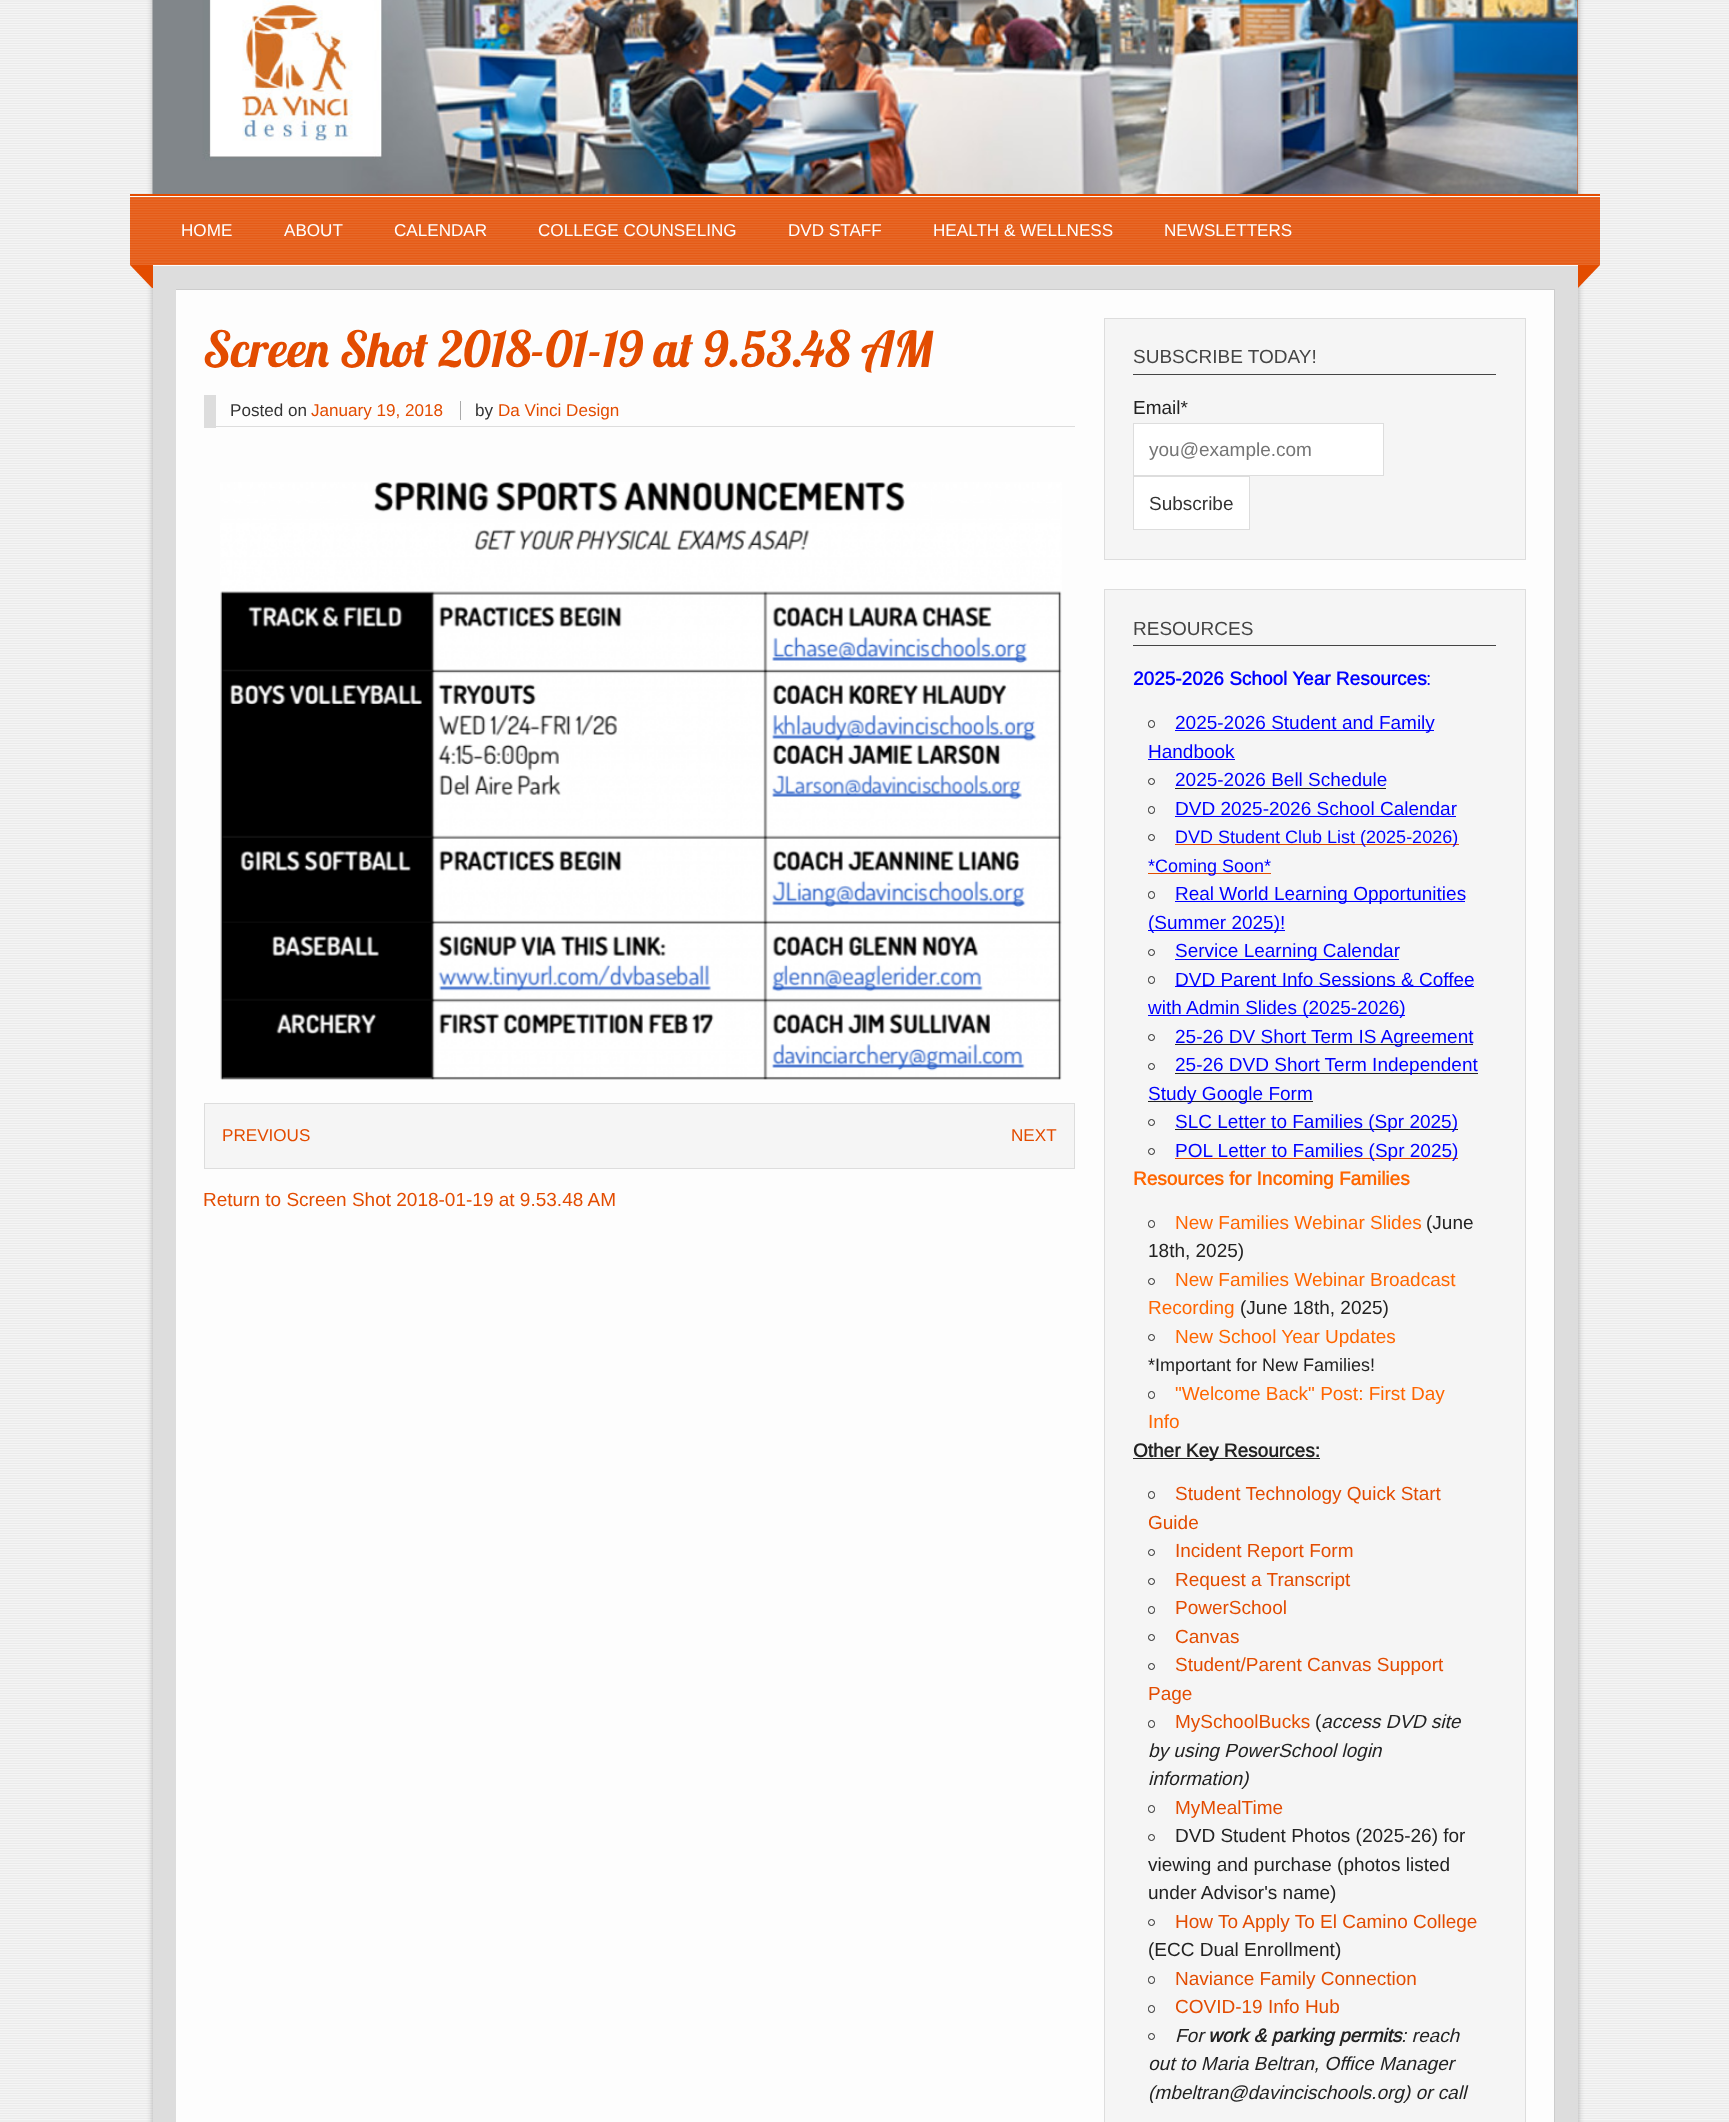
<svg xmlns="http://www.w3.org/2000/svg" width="1729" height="2122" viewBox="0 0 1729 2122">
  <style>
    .t1 { font: 17.1px Arimo; fill: #fff; }
    .t2 { font: 49.4px Lobster; fill: #e34c00; }
    .t3 { font: 17.1px Arimo; fill: #333; }
    .t4 { font: 17.1px Arimo; fill: #e34c00; }
    .t5 { font: 19px Arimo; fill: #e34c00; }
    .t6 { font: 19px Arimo; fill: #444; }
    .t7 { font: 19px Arimo; fill: #222; }
    .t8 { font: 19px Arimo; fill: #757575; }
    .t9 { font: 19px Arimo; fill: #333; }
    .t10 { font: bold 19px Arimo; fill: #00f; }
    .t11 { font: 19px Arimo; fill: #00f; }
    .t12 { font: 18px Arimo; fill: #00f; }
    .t13 { font: bold 19px Arimo; fill: #f60; }
    .t14 { font: 19px Arimo; fill: #f60; }
    .t15 { font: 18px Arimo; fill: #222; }
    .t16 { font: bold 19px Arimo; fill: #222; }
    .t17 { font: italic 19px Arimo; fill: #222; }
    .t18 { font: italic bold 19px Arimo; fill: #222; }
  </style>
  <rect width="100%" height="100%" fill="#eee"/>
  <image x="0" y="2" width="1729" height="2118" href="images/1.png"/>
  <rect x="153" y="-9" width="1425" height="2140" fill="#aaa" filter="blur(3px)"/>
  <rect x="1577" y="0" width="1" height="194" fill="#e34c00"/>
  <image x="152" y="0" width="1426" height="194" href="images/2.png"/>
  <rect x="130" y="197" width="1470" height="68" fill="#e34c00"/>
  <image x="130" y="197" width="1470" height="68" href="images/3.png"/>
  <rect x="130" y="194" width="1470" height="2" fill="#e34c00"/>
  <rect x="130" y="196" width="1470" height="1" fill="#fdfdfd"/>
  <text x="181" y="236" class="t1">HOME</text>
  <text x="284" y="236" class="t1">ABOUT</text>
  <text x="394" y="236" class="t1">CALENDAR</text>
  <text x="538" y="236" class="t1">COLLEGE COUNSELING</text>
  <text x="788" y="236" class="t1">DVD STAFF</text>
  <text x="933" y="236" class="t1">HEALTH &amp; WELLNESS</text>
  <text x="1164" y="236" class="t1">NEWSLETTERS</text>
  <path d="M130 265H1600L1578 288H152Z" fill="#e34c00"/>
  <rect x="153" y="265" width="1425" height="1" fill="#fdfdfd"/>
  <rect x="175.5" y="289.5" width="1379" height="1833" fill="#fdfdfd" stroke="#ccc"/>
  <rect x="164.5" y="277.5" width="1402" height="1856" fill="none" stroke="#ddd" stroke-width="23"/>
  <text x="203" y="367" class="t2">Screen Shot 2018-01-19 at 9.53.48 AM</text>
  <rect x="216" y="426" width="859" height="1" fill="#ddd"/>
  <rect x="204" y="395" width="12" height="33" fill="#ddd"/>
  <text x="230" y="416" class="t3">Posted on</text>
  <text x="311" y="416" class="t4">January 19, 2018</text>
  <text x="475" y="416" class="t3">by</text>
  <rect x="460" y="401" width="1" height="19" fill="#aaa"/>
  <text x="498" y="416" class="t4">Da Vinci Design</text>
  <image x="220" y="482" width="842" height="598" href="images/4.png"/>
  <rect x="204.5" y="1103.5" width="870" height="65" fill="#f5f5f5" stroke="#ddd"/>
  <text x="222" y="1141" class="t4">PREVIOUS</text>
  <text x="1011" y="1141" class="t4">NEXT</text>
  <text x="203" y="1206" class="t5">Return to Screen Shot 2018-01-19 at 9.53.48 AM</text>
  <rect x="1104.5" y="318.5" width="421" height="241" fill="#f5f5f5" stroke="#ddd"/>
  <rect x="1133" y="374" width="363" height="1" fill="#444"/>
  <text x="1133" y="363" class="t6">SUBSCRIBE TODAY!</text>
  <text x="1133" y="414" class="t7">Email*</text>
  <rect x="1133.5" y="423.5" width="250" height="52" fill="#fff" stroke="#ddd"/>
  <text x="1149" y="456" class="t8">you@example.com</text>
  <rect x="1133.5" y="476.5" width="116" height="53" fill="#fff" stroke="#ddd"/>
  <text x="1149" y="510" class="t9">Subscribe</text>
  <rect x="1104.5" y="589.5" width="421" height="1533" fill="#f5f5f5" stroke="#ddd"/>
  <rect x="1133" y="645" width="363" height="1" fill="#444"/>
  <text x="1133" y="635" class="t6">RESOURCES</text>
  <text x="1133" y="685" class="t10">2025-2026 School Year Resources</text>
  <text x="1426" y="685" class="t11">:</text>
  <rect x="1148.5" y="720.5" width="6" height="7" rx="3" fill="none" stroke="#222"/>
  <rect x="1175" y="730" width="259" height="1" fill="#00f"/>
  <text x="1175" y="729" class="t11">2025-2026 Student and Family</text>
  <text x="1148" y="758" class="t11">Handbook</text>
  <rect x="1148" y="759" width="87" height="1" fill="#00f"/>
  <circle cx="1151.5" cy="781.5" r="3" fill="none" stroke="#222"/>
  <text x="1175" y="786" class="t11">2025-2026 Bell Schedule</text>
  <rect x="1175" y="788" width="211" height="1" fill="#222"/>
  <rect x="1148.5" y="806.5" width="6" height="7" rx="3" fill="none" stroke="#222"/>
  <text x="1175" y="815" class="t11">DVD 2025-2026 School Calendar</text>
  <rect x="1175" y="816" width="281" height="1" fill="#00f"/>
  <circle cx="1151.5" cy="837.5" r="3" fill="none" stroke="#222"/>
  <rect x="1175" y="844" width="284" height="1" fill="#e34c00"/>
  <text x="1175" y="843" class="t12">DVD Student Club List (2025-2026)</text>
  <rect x="1148" y="873" width="123" height="1" fill="#e34c00"/>
  <text x="1148" y="872" class="t12">*Coming Soon*</text>
  <rect x="1148.5" y="891.5" width="6" height="7" rx="3" fill="none" stroke="#222"/>
  <rect x="1175" y="901" width="290" height="1" fill="#00f"/>
  <text x="1175" y="900" class="t11">Real World Learning Opportunities</text>
  <rect x="1148" y="930" width="137" height="1" fill="#00f"/>
  <text x="1148" y="929" class="t11">(Summer 2025)!</text>
  <circle cx="1151.5" cy="952.5" r="3" fill="none" stroke="#222"/>
  <rect x="1175" y="959" width="224" height="1" fill="#00f"/>
  <text x="1175" y="957" class="t11">Service Learning Calendar</text>
  <rect x="1148.5" y="976.5" width="6" height="7" rx="3" fill="none" stroke="#222"/>
  <rect x="1175" y="986" width="299" height="1" fill="#00f"/>
  <text x="1175" y="986" class="t11">DVD Parent Info Sessions &amp; Coffee</text>
  <rect x="1148" y="1015" width="257" height="1" fill="#00f"/>
  <text x="1148" y="1014" class="t11">with Admin Slides (2025-2026)</text>
  <circle cx="1151.5" cy="1037.5" r="3" fill="none" stroke="#222"/>
  <rect x="1175" y="1044" width="298" height="1" fill="#222"/>
  <text x="1175" y="1043" class="t11">25-26 DV Short Term IS Agreement</text>
  <circle cx="1151.5" cy="1066.5" r="3" fill="none" stroke="#222"/>
  <rect x="1175" y="1073" width="303" height="1" fill="#222"/>
  <text x="1175" y="1071" class="t11">25-26 DVD Short Term Independent</text>
  <rect x="1148" y="1101" width="165" height="1" fill="#222"/>
  <text x="1148" y="1100" class="t11">Study Google Form</text>
  <circle cx="1151.5" cy="1122.5" r="3" fill="none" stroke="#222"/>
  <rect x="1175" y="1129" width="283" height="1" fill="#222"/>
  <text x="1175" y="1128" class="t11">SLC Letter to Families (Spr 2025)</text>
  <circle cx="1151.5" cy="1151.5" r="3" fill="none" stroke="#222"/>
  <rect x="1175" y="1158" width="283" height="1" fill="#e34c00"/>
  <text x="1175" y="1157" class="t11">POL Letter to Families (Spr 2025)</text>
  <text x="1133" y="1185" class="t13">Resources for Incoming Families</text>
  <rect x="1148.5" y="1220.5" width="6" height="7" rx="3" fill="none" stroke="#222"/>
  <text x="1175" y="1229" class="t14">New Families Webinar Slides</text>
  <text x="1426" y="1229" class="t7">(June</text>
  <text x="1148" y="1257" class="t7">18th, 2025)</text>
  <circle cx="1151.5" cy="1281.5" r="3" fill="none" stroke="#222"/>
  <text x="1175" y="1286" class="t14">New Families Webinar Broadcast</text>
  <text x="1148" y="1314" class="t14">Recording</text>
  <text x="1240" y="1314" class="t7">(June 18th, 2025)</text>
  <circle cx="1151.5" cy="1337.5" r="3" fill="none" stroke="#222"/>
  <text x="1175" y="1343" class="t14">New School Year Updates</text>
  <text x="1148" y="1371" class="t15">*Important for New Families!</text>
  <rect x="1148.5" y="1391.5" width="6" height="7" rx="3" fill="none" stroke="#222"/>
  <text x="1175" y="1400" class="t14">"Welcome Back" Post: First Day</text>
  <text x="1148" y="1428" class="t14">Info</text>
  <rect x="1133" y="1458" width="187" height="1" fill="#222"/>
  <text x="1133" y="1457" class="t16">Other Key Resources:</text>
  <rect x="1148.5" y="1491.5" width="6" height="7" rx="3" fill="none" stroke="#222"/>
  <text x="1175" y="1500" class="t5">Student Technology Quick Start</text>
  <text x="1148" y="1529" class="t5">Guide</text>
  <circle cx="1151.5" cy="1552.5" r="3" fill="none" stroke="#222"/>
  <text x="1175" y="1557" class="t5">Incident Report Form</text>
  <circle cx="1151.5" cy="1581.5" r="3" fill="none" stroke="#222"/>
  <text x="1175" y="1586" class="t5">Request a Transcript</text>
  <rect x="1148.5" y="1606.5" width="6" height="7" rx="3" fill="none" stroke="#222"/>
  <text x="1175" y="1614" class="t5">PowerSchool</text>
  <circle cx="1151.5" cy="1637.5" r="3" fill="none" stroke="#222"/>
  <text x="1175" y="1643" class="t5">Canvas</text>
  <circle cx="1151.5" cy="1666.5" r="3" fill="none" stroke="#222"/>
  <text x="1175" y="1671" class="t5">Student/Parent Canvas Support</text>
  <text x="1148" y="1700" class="t5">Page</text>
  <rect x="1148.5" y="1720.5" width="6" height="7" rx="3" fill="none" stroke="#222"/>
  <text x="1175" y="1728" class="t5">MySchoolBucks</text>
  <text x="1315" y="1728" class="t7">(</text>
  <text x="1321" y="1728" class="t17">access DVD site</text>
  <text x="1148" y="1757" class="t17">by using PowerSchool login</text>
  <text x="1148" y="1785" class="t17">information)</text>
  <rect x="1148.5" y="1805.5" width="6" height="7" rx="3" fill="none" stroke="#222"/>
  <text x="1175" y="1814" class="t5">MyMealTime</text>
  <circle cx="1151.5" cy="1837.5" r="3" fill="none" stroke="#222"/>
  <text x="1175" y="1842" class="t7">DVD Student Photos (2025-26) for</text>
  <text x="1148" y="1871" class="t7">viewing and purchase (photos listed</text>
  <text x="1148" y="1899" class="t7">under Advisor's name)</text>
  <circle cx="1151.5" cy="1922.5" r="3" fill="none" stroke="#222"/>
  <text x="1175" y="1928" class="t5">How To Apply To El Camino College</text>
  <text x="1148" y="1956" class="t7">(ECC Dual Enrollment)</text>
  <rect x="1148.5" y="1976.5" width="6" height="7" rx="3" fill="none" stroke="#222"/>
  <text x="1175" y="1985" class="t5">Naviance Family Connection</text>
  <rect x="1148.5" y="2005.5" width="6" height="7" rx="3" fill="none" stroke="#222"/>
  <text x="1175" y="2013" class="t5">COVID-19 Info Hub</text>
  <circle cx="1151.5" cy="2036.5" r="3" fill="none" stroke="#222"/>
  <text x="1175" y="2042" class="t17">For</text>
  <text x="1208" y="2042" class="t18">work &amp; parking permits</text>
  <text x="1401" y="2042" class="t17">: reach</text>
  <text x="1148" y="2070" class="t17">out to Maria Beltran, Office Manager</text>
  <text x="1148" y="2099" class="t17">(mbeltran@davincischools.org) or call</text>
</svg>
